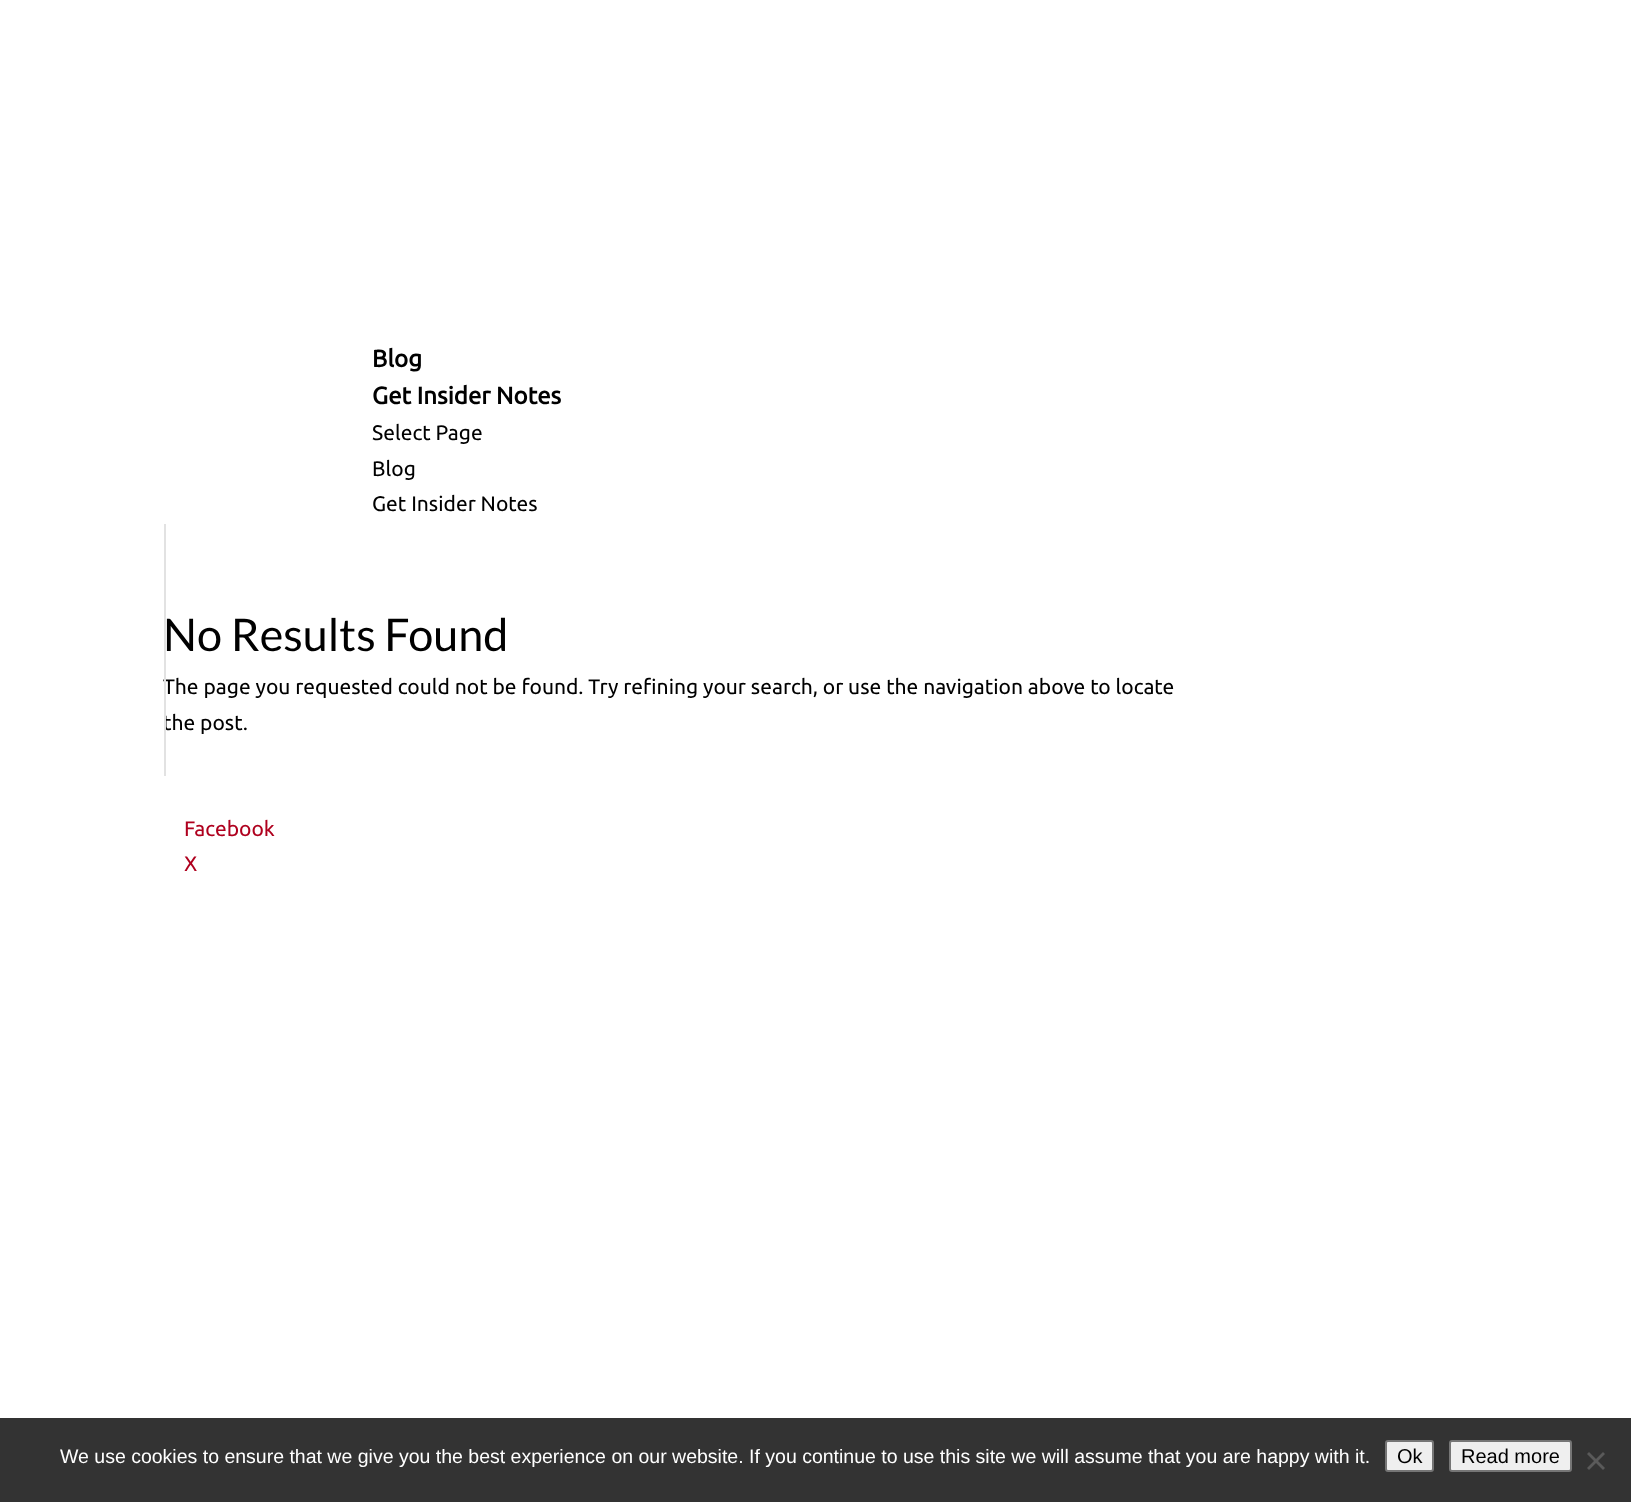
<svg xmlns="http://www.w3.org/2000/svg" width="1631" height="1502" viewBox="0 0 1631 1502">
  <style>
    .t1 { font: bold 24px Ubuntu; fill: #000; }
    .t2 { font: 21px Ubuntu; fill: #000; }
    .t3 { font: 45px Lato; fill: #000; }
    .t4 { font: 21px Ubuntu; fill: #af001e; }
    .t5 { font: 19.5px Liberation Sans; fill: #fff; }
    .t6 { font: 20px Liberation Sans; fill: #000; }
  </style>
  <rect width="100%" height="100%" fill="#fff"/>
  <text x="372" y="367" class="t1">Blog</text>
  <text x="372" y="404" class="t1">Get Insider Notes</text>
  <text x="372" y="440" class="t2">Select Page</text>
  <text x="372" y="476" class="t2">Blog</text>
  <text x="372" y="511" class="t2">Get Insider Notes</text>
  <text x="163" y="694" class="t2">The page you requested could not be found. Try refining your search, or use the navigation above to locate</text>
  <text x="163" y="730" class="t2">the post.</text>
  <rect x="164" y="524" width="2" height="252" fill="#e2e2e2"/>
  <text x="163" y="651" class="t3">No Results Found</text>
  <text x="184" y="836" class="t4">Facebook</text>
  <text x="184" y="871" class="t4">X</text>
  <rect x="0" y="1418" width="1631" height="84" fill="#333"/>
  <text x="60" y="1463" class="t5">We use cookies to ensure that we give you the best experience on our website. If you continue to use this site we will assume that you are happy with it.</text>
  <rect x="1386" y="1441" width="47" height="30" rx="2" fill="#efefef" stroke="#767676" stroke-width="2"/>
  <text x="1397" y="1463" class="t6">Ok</text>
  <rect x="1450" y="1441" width="121" height="30" rx="2" fill="#efefef" stroke="#767676" stroke-width="2"/>
  <text x="1461" y="1463" class="t6">Read more</text>
  <path d="M1603 1452L1605 1454L1589 1470L1587 1468Z" fill="#5a5a5a"/>
  <path d="M1587 1454L1589 1452L1605 1468L1603 1470Z" fill="#5a5a5a"/>
</svg>
